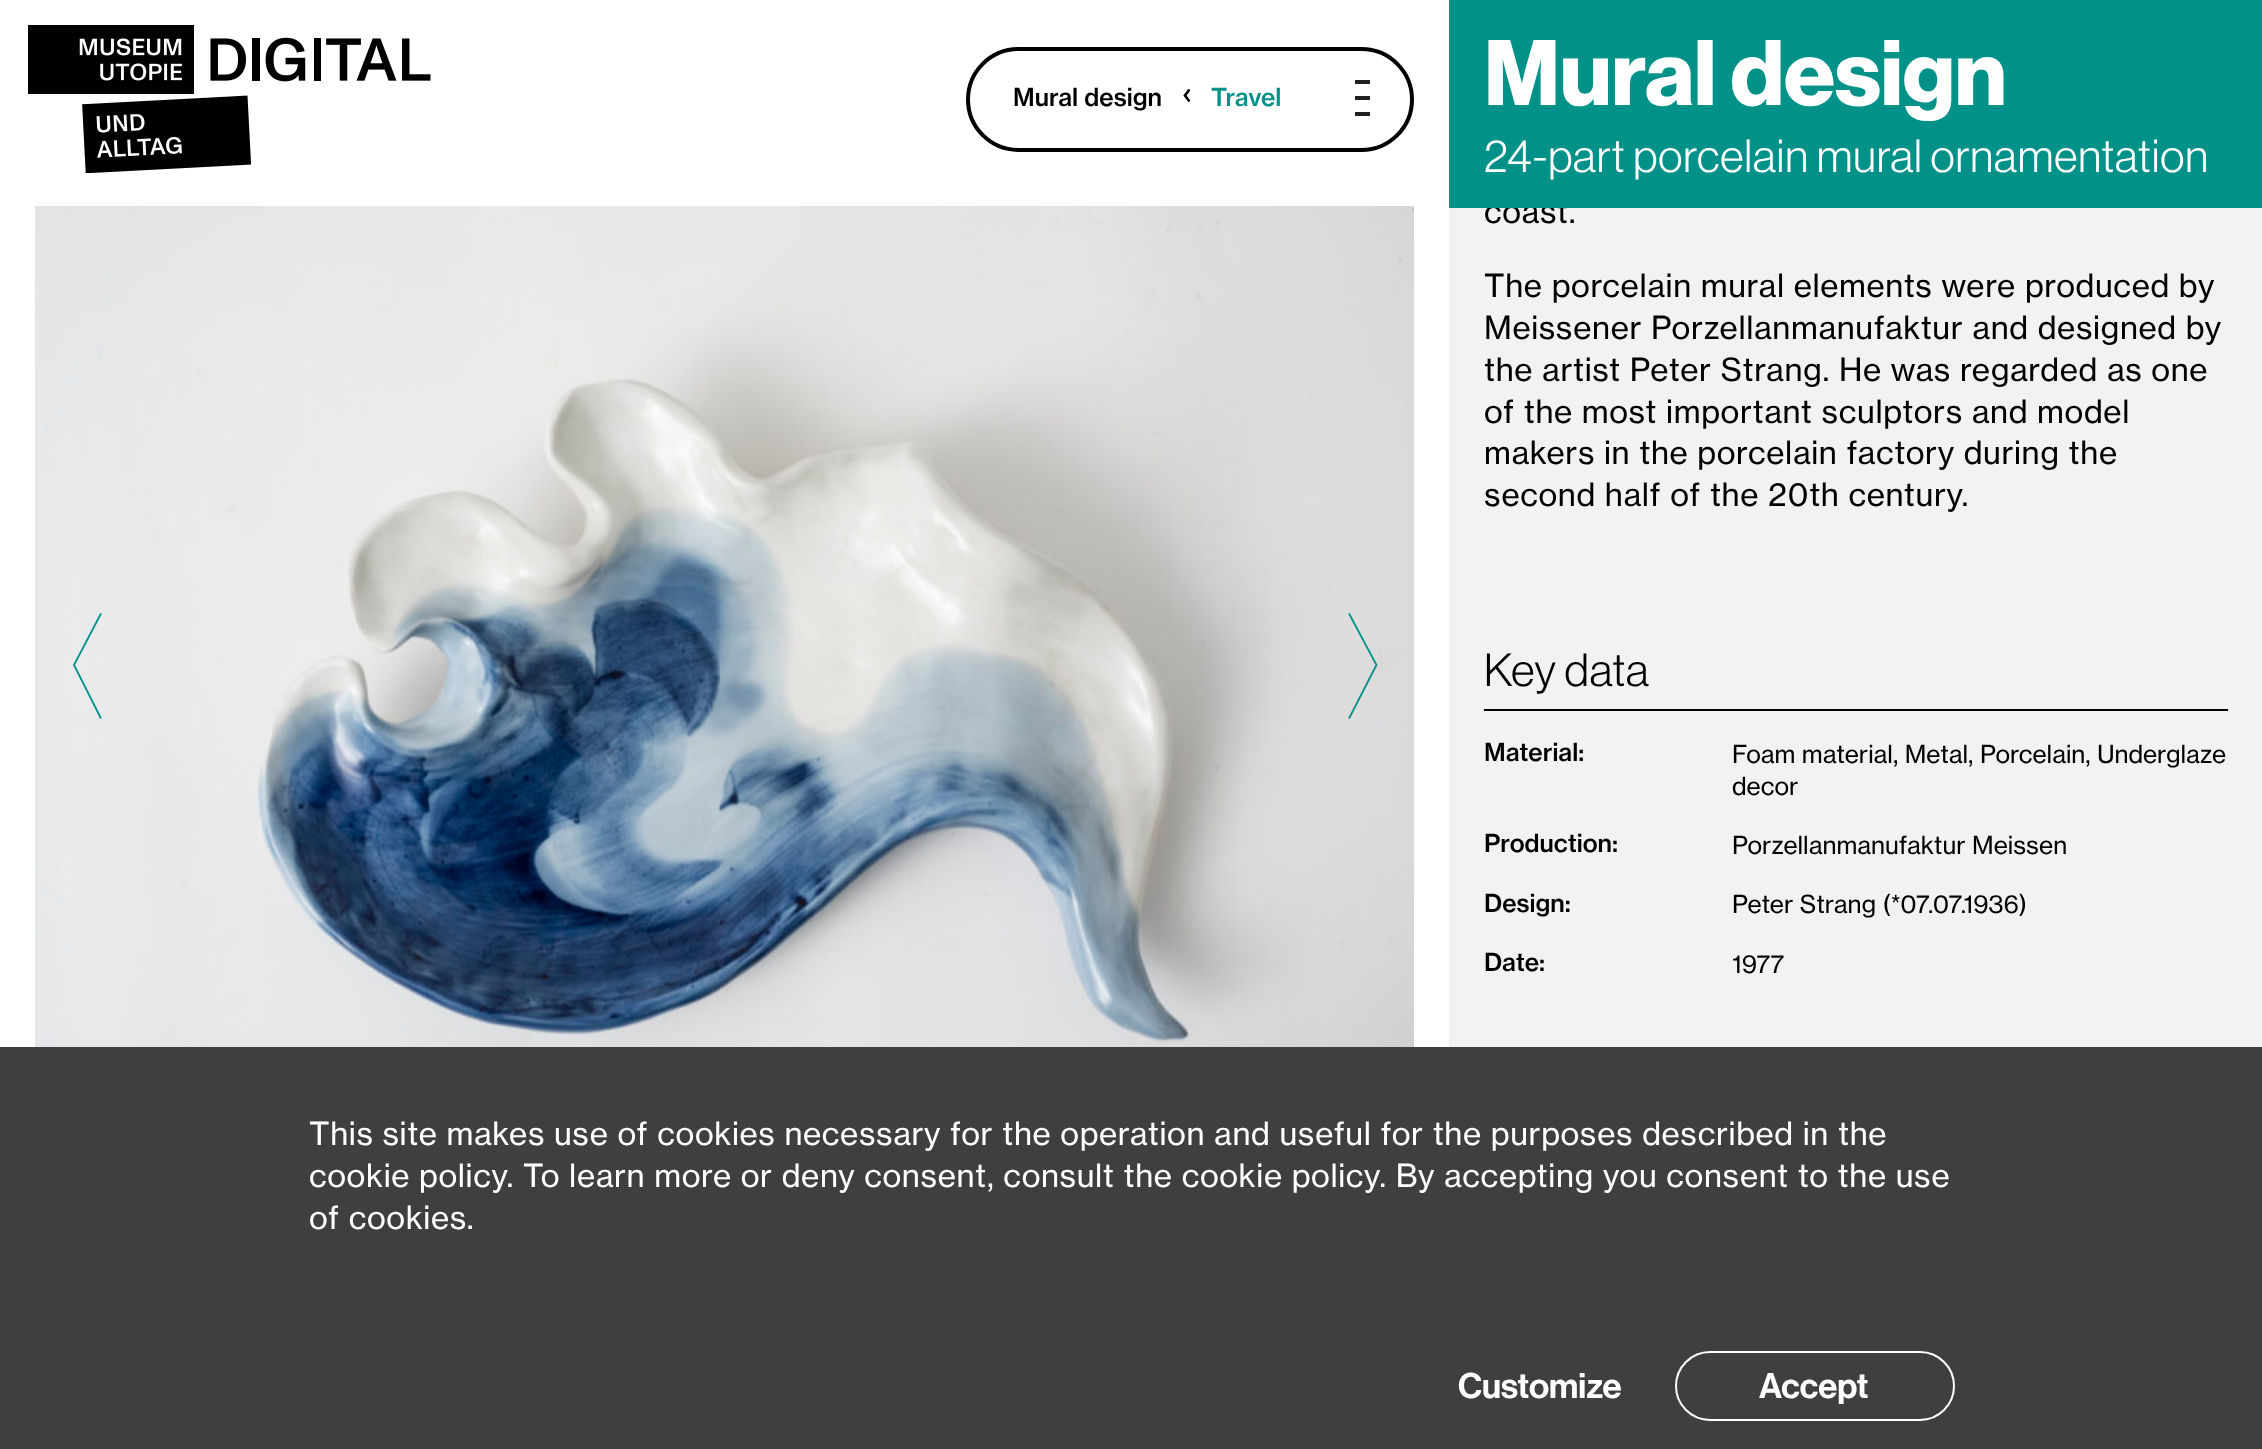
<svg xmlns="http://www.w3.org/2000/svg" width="2262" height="1449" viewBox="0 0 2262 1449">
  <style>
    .t1 { font: 500 24.5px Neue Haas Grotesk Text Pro; fill: #000; }
    .t2 { font: 500 24.5px Neue Haas Grotesk Text Pro; fill: #009289; }
    .t3 { font: 31.5px Neue Haas Grotesk Text Pro; letter-spacing: 0.63px; fill: #000; }
    .t4 { font: bold 91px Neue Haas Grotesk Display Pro; fill: #fff; }
    .t5 { font: 45.5px Neue Haas Grotesk Display Pro; letter-spacing: 0.9px; fill: #fff; }
    .t6 { font: 45.5px Neue Haas Grotesk Display Pro; letter-spacing: 0.9px; fill: #000; }
    .t7 { font: 24.5px Neue Haas Grotesk Text Pro; fill: #000; }
    .t8 { font: 31.5px Neue Haas Grotesk Text Pro; letter-spacing: 0.63px; fill: #fff; }
    .t9 { font: 500 35px Neue Haas Grotesk Display Pro; fill: #fff; }
  </style>
  <defs>
    <clipPath id="clip1"><rect x="1181" y="89" width="9" height="16"/></clipPath>
  </defs>
  <rect width="100%" height="100%" fill="#fff"/>
  <image x="28" y="25" width="403" height="148" href="images/1.png"/>
  <rect x="968" y="49" width="444" height="101" rx="50.5" fill="none" stroke="#000" stroke-width="4"/>
  <text x="1013" y="106" class="t1">Mural design</text>
  <g clip-path="url(#clip1)">
    <path d="M1189.5 89.5L1185 95.5L1189.5 101.5" fill="none" stroke="#000" stroke-width="2.6"/>
  </g>
  <text x="1211" y="106" class="t2">Travel</text>
  <rect x="1355" y="80" width="15" height="4" fill="#202020"/>
  <rect x="1355" y="96" width="15" height="4" fill="#202020"/>
  <rect x="1355" y="112" width="15" height="4" fill="#202020"/>
  <rect x="1449" y="208" width="813" height="839" fill="#f2f2f2"/>
  <text x="1484" y="223" class="t3">coast.</text>
  <rect x="1449" y="0" width="813" height="208" fill="#009289"/>
  <text x="1484" y="105" class="t4">Mural design</text>
  <text x="1484" y="172" class="t5">24-part porcelain mural ornamentation</text>
  <image x="35" y="206" width="1379" height="841" href="images/2.png"/>
  <path d="M101 718.5L74 665L101 613.5" fill="none" stroke="#009289" stroke-width="1.8"/>
  <path d="M1349 718.5L1376.5 665L1349 613.5" fill="none" stroke="#009289" stroke-width="1.8"/>
  <text x="1484" y="297" class="t3">The porcelain mural elements were produced by</text>
  <text x="1484" y="339" class="t3">Meissener Porzellanmanufaktur and designed by</text>
  <text x="1484" y="381" class="t3">the artist Peter Strang. He was regarded as one</text>
  <text x="1484" y="423" class="t3">of the most important sculptors and model</text>
  <text x="1484" y="464" class="t3">makers in the porcelain factory during the</text>
  <text x="1484" y="506" class="t3">second half of the 20th century.</text>
  <rect x="1484" y="709" width="744" height="2" fill="#000"/>
  <text x="1484" y="686" class="t6">Key data</text>
  <text x="1484" y="761" class="t1">Material:</text>
  <text x="1732" y="763" class="t7">Foam material, Metal, Porcelain, Underglaze</text>
  <text x="1732" y="795" class="t7">decor</text>
  <text x="1484" y="852" class="t1">Production:</text>
  <text x="1732" y="854" class="t7">Porzellanmanufaktur Meissen</text>
  <text x="1484" y="912" class="t1">Design:</text>
  <text x="1732" y="913" class="t7">Peter Strang (*07.07.1936)</text>
  <text x="1484" y="971" class="t1">Date:</text>
  <text x="1732" y="973" class="t7">1977</text>
  <rect x="0" y="1047" width="2262" height="402" fill="#3f3f3f"/>
  <text x="309" y="1145" class="t8">This site makes use of cookies necessary for the operation and useful for the purposes described in the</text>
  <text x="309" y="1187" class="t8">cookie policy. To learn more or deny consent, consult the cookie policy. By accepting you consent to the use</text>
  <text x="309" y="1229" class="t8">of cookies.</text>
  <text x="1458" y="1398" class="t9">Customize</text>
  <rect x="1676" y="1352" width="278" height="68" rx="34" fill="none" stroke="#fff" stroke-width="2"/>
  <text x="1759" y="1398" class="t9">Accept</text>
</svg>
